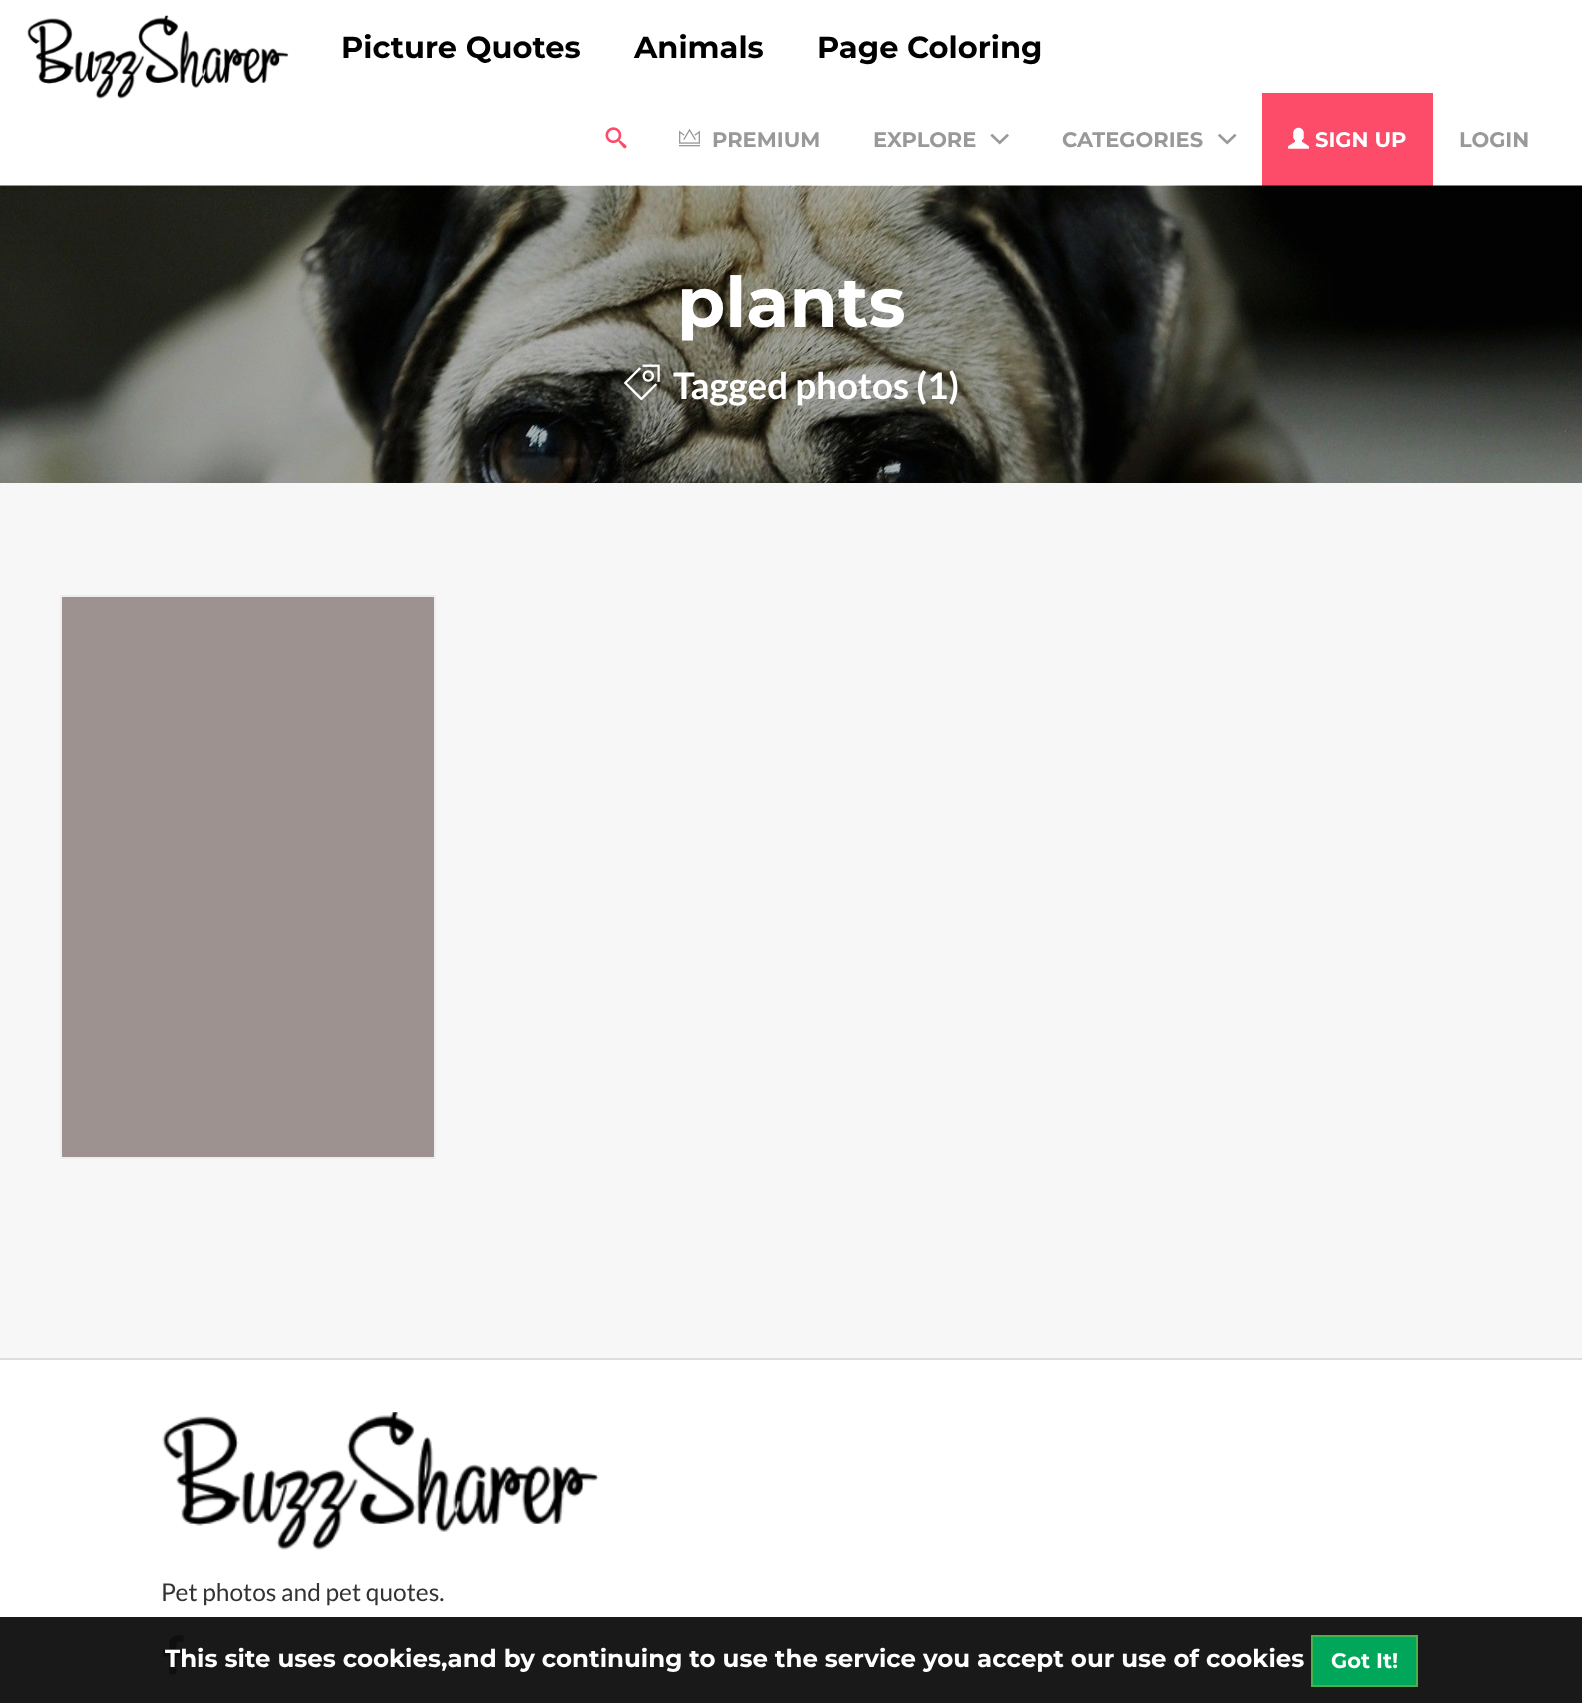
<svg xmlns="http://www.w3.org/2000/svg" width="1582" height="1703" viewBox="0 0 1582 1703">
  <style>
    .t1 { font: 100 30.5px Montserrat; fill: #000; }
    .t2 { font: 100 21px Montserrat; fill: #999; }
    .t3 { font: 100 21px Montserrat; fill: #fff; }
    .t4 { font: 100 70px Montserrat; fill: #fff; }
    .t5 { font: bold 36.75px Lato; fill: #fff; }
    .t6 { font: 24.5px Lato; fill: #333; }
    .t7 { font: 100 24.5px Montserrat; fill: #fff; }
  </style>
  <rect width="100%" height="100%" fill="#f7f7f7"/>
  <rect x="0" y="0" width="1582" height="186" fill="#fff"/>
  <image x="27" y="15" width="262" height="84" href="images/1.png"/>
  <text x="341" y="58" class="t1">Picture Quotes</text>
  <text x="634" y="58" class="t1">Animals</text>
  <text x="817" y="58" class="t1">Page Coloring</text>
  <image x="605" y="127" width="22" height="22" href="images/2.png"/>
  <image x="679" y="128" width="21" height="19" href="images/3.png"/>
  <text x="712" y="147" class="t2">PREMIUM</text>
  <text x="873" y="147" class="t2">EXPLORE</text>
  <image x="990" y="133" width="19" height="12" href="images/4.png"/>
  <text x="1062" y="147" class="t2">CATEGORIES</text>
  <image x="1218" y="133" width="19" height="12" href="images/5.png"/>
  <rect x="1262" y="93" width="171" height="93" fill="#fc4c69"/>
  <image x="1288" y="127" width="21" height="22" href="images/6.png"/>
  <text x="1315" y="147" class="t3">SIGN UP</text>
  <text x="1459" y="147" class="t2">LOGIN</text>
  <image x="0" y="185" width="1582" height="298" href="images/7.png"/>
  <text x="677" y="327" class="t4">plants</text>
  <image x="623" y="364" width="37" height="37" href="images/8.png"/>
  <text x="673" y="399" class="t5">Tagged photos (1)</text>
  <rect x="61" y="596" width="374" height="562" fill="#9d9290" stroke="#eee" stroke-width="2"/>
  <rect x="0" y="1360" width="1582" height="257" fill="#fff"/>
  <rect x="0" y="1617" width="1582" height="86" fill="#191919"/>
  <rect x="0" y="1358" width="1582" height="2" fill="#ddd"/>
  <image x="162" y="1412" width="437" height="138" href="images/9.png"/>
  <text x="161" y="1601" class="t6">Pet photos and pet quotes.</text>
  <image x="163" y="1635" width="21" height="40" href="images/10.png"/>
  <text x="165" y="1667" class="t7">This site uses cookies,and by continuing to use the service you accept our use of cookies</text>
  <rect x="1312" y="1636" width="105" height="50" fill="#00a65a" stroke="#4cae4c" stroke-width="2"/>
  <text x="1331" y="1668" class="t3">Got It!</text>
</svg>
